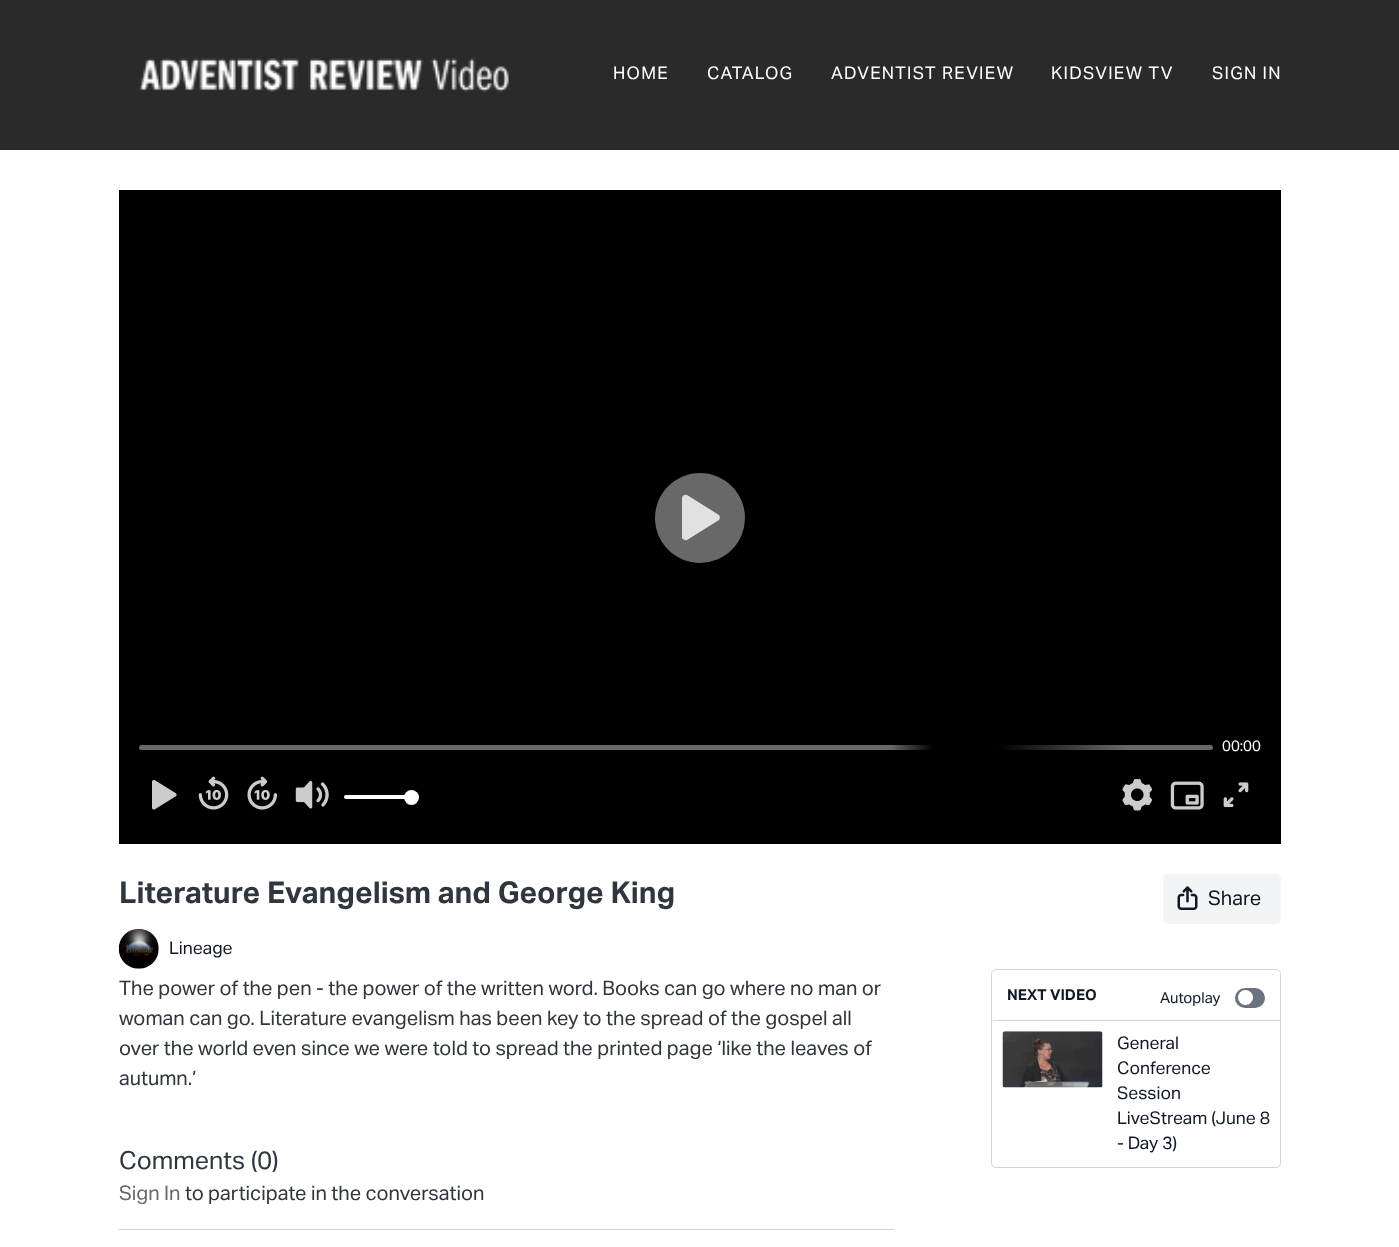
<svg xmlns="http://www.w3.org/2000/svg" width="1399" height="1247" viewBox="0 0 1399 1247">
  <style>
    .t1 { font: 17.5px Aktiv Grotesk; letter-spacing: 1.25px; fill: #fff; }
    .t2 { font: 15px Aktiv Grotesk; fill: #fff; }
    .t3 { font: bold 30px Aktiv Grotesk; fill: #30363e; }
    .t4 { font: 20px Aktiv Grotesk; fill: #111827; }
    .t5 { font: 17.5px Aktiv Grotesk; fill: #111827; }
    .t6 { font: 20px Aktiv Grotesk; fill: #30363e; }
    .t7 { font: 25px Aktiv Grotesk; fill: #30363e; }
    .t8 { font: 20px Aktiv Grotesk; fill: #686868; }
    .t9 { font: bold 15px Aktiv Grotesk; fill: #111827; }
    .t10 { font: 15px Aktiv Grotesk; fill: #111827; }
  </style>
  <defs>
    <linearGradient id="g1" gradientUnits="userSpaceOnUse" x1="139" y1="750" x2="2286" y2="750"><stop offset="0.35" stop-color="#686868"/><stop offset="0.37" stop-color="#000"/><stop offset="0.4" stop-color="#000"/><stop offset="0.46" stop-color="#686868"/><stop offset="1" stop-color="#686868"/></linearGradient>
    <clipPath id="clip1"><rect x="1118" y="1031" width="152" height="125"/></clipPath>
  </defs>
  <rect width="100%" height="100%" fill="#fff"/>
  <rect x="0" y="0" width="1399" height="150" fill="#2a2a2a"/>
  <image x="139" y="58" width="370" height="35" href="images/1.png"/>
  <text x="613" y="79" class="t1">HOME</text>
  <text x="707" y="79" class="t1">CATALOG</text>
  <text x="831" y="79" class="t1">ADVENTIST REVIEW</text>
  <text x="1051" y="79" class="t1">KIDSVIEW TV</text>
  <text x="1212" y="79" class="t1">SIGN IN</text>
  <rect x="119" y="190" width="1162" height="654" fill="#000"/>
  <circle cx="700" cy="518" r="45" fill="#686868"/>
  <path d="M687 495C685 494 682 496 682 498V537C682 539 685 541 687 540L719 520C720 519 720 516 719 515Z" fill="#e1e1e1"/>
  <rect x="139" y="745" width="1074" height="5" rx="2.5" fill="url(#g1)"/>
  <text x="1222" y="751" class="t2">00:00</text>
  <image x="152" y="780" width="25" height="30" href="images/2.png"/>
  <image x="198" y="776" width="31" height="34" href="images/3.png"/>
  <image x="247" y="776" width="30" height="34" href="images/4.png"/>
  <image x="295" y="781" width="34" height="28" href="images/5.png"/>
  <rect x="344" y="795" width="75" height="4" rx="2" fill="#fff"/>
  <circle cx="411.5" cy="797.5" r="7.5" fill="#fff"/>
  <image x="1122" y="779" width="30" height="32" href="images/6.png"/>
  <image x="1170" y="781" width="34" height="29" href="images/7.png"/>
  <image x="1223" y="782" width="26" height="26" href="images/8.png"/>
  <text x="119" y="903" class="t3">Literature Evangelism and George King</text>
  <rect x="1163" y="874" width="118" height="50" rx="5" fill="#f3f4f6"/>
  <image x="1177" y="886" width="21" height="24" href="images/9.png"/>
  <text x="1208" y="905" class="t4">Share</text>
  <image x="118" y="928" width="41" height="41" href="images/10.png"/>
  <text x="169" y="954" class="t5">Lineage</text>
  <text x="119" y="995" class="t6">The power of the pen - the power of the written word. Books can go where no man or</text>
  <text x="119" y="1025" class="t6">woman can go. Literature evangelism has been key to the spread of the gospel all</text>
  <text x="119" y="1055" class="t6">over the world even since we were told to spread the printed page ‘like the leaves of</text>
  <text x="119" y="1085" class="t6">autumn.’</text>
  <text x="119" y="1169" class="t7">Comments (0)</text>
  <text x="119" y="1200" class="t8">Sign In</text>
  <text x="185" y="1200" class="t6">to participate in the conversation</text>
  <rect x="119" y="1229" width="775" height="1" fill="#d1d5db"/>
  <rect x="991.5" y="969.5" width="289" height="198" rx="4.5" fill="none" stroke="#d1d5db"/>
  <path d="M997 970H1276C1278 970 1280 972 1280 974V1020H993V974C993 972 995 970 997 970Z" fill="#fff"/>
  <rect x="993" y="1020" width="287" height="1" fill="#d1d5db"/>
  <text x="1007" y="1000" class="t9">NEXT VIDEO</text>
  <text x="1160" y="1003" class="t10">Autoplay</text>
  <rect x="1235" y="988" width="30" height="20" rx="10" fill="#6b7280"/>
  <circle cx="1245.5" cy="997.5" r="7.5" fill="#fff"/>
  <image x="1002" y="1031" width="101" height="57" href="images/11.png"/>
  <g clip-path="url(#clip1)">
    <text x="1117" y="1049" class="t5">General</text>
    <text x="1117" y="1074" class="t5">Conference</text>
    <text x="1117" y="1099" class="t5">Session</text>
  </g>
  <text x="1117" y="1124" class="t5">LiveStream (June 8</text>
  <text x="1117" y="1149" class="t5">- Day 3)</text>
</svg>
